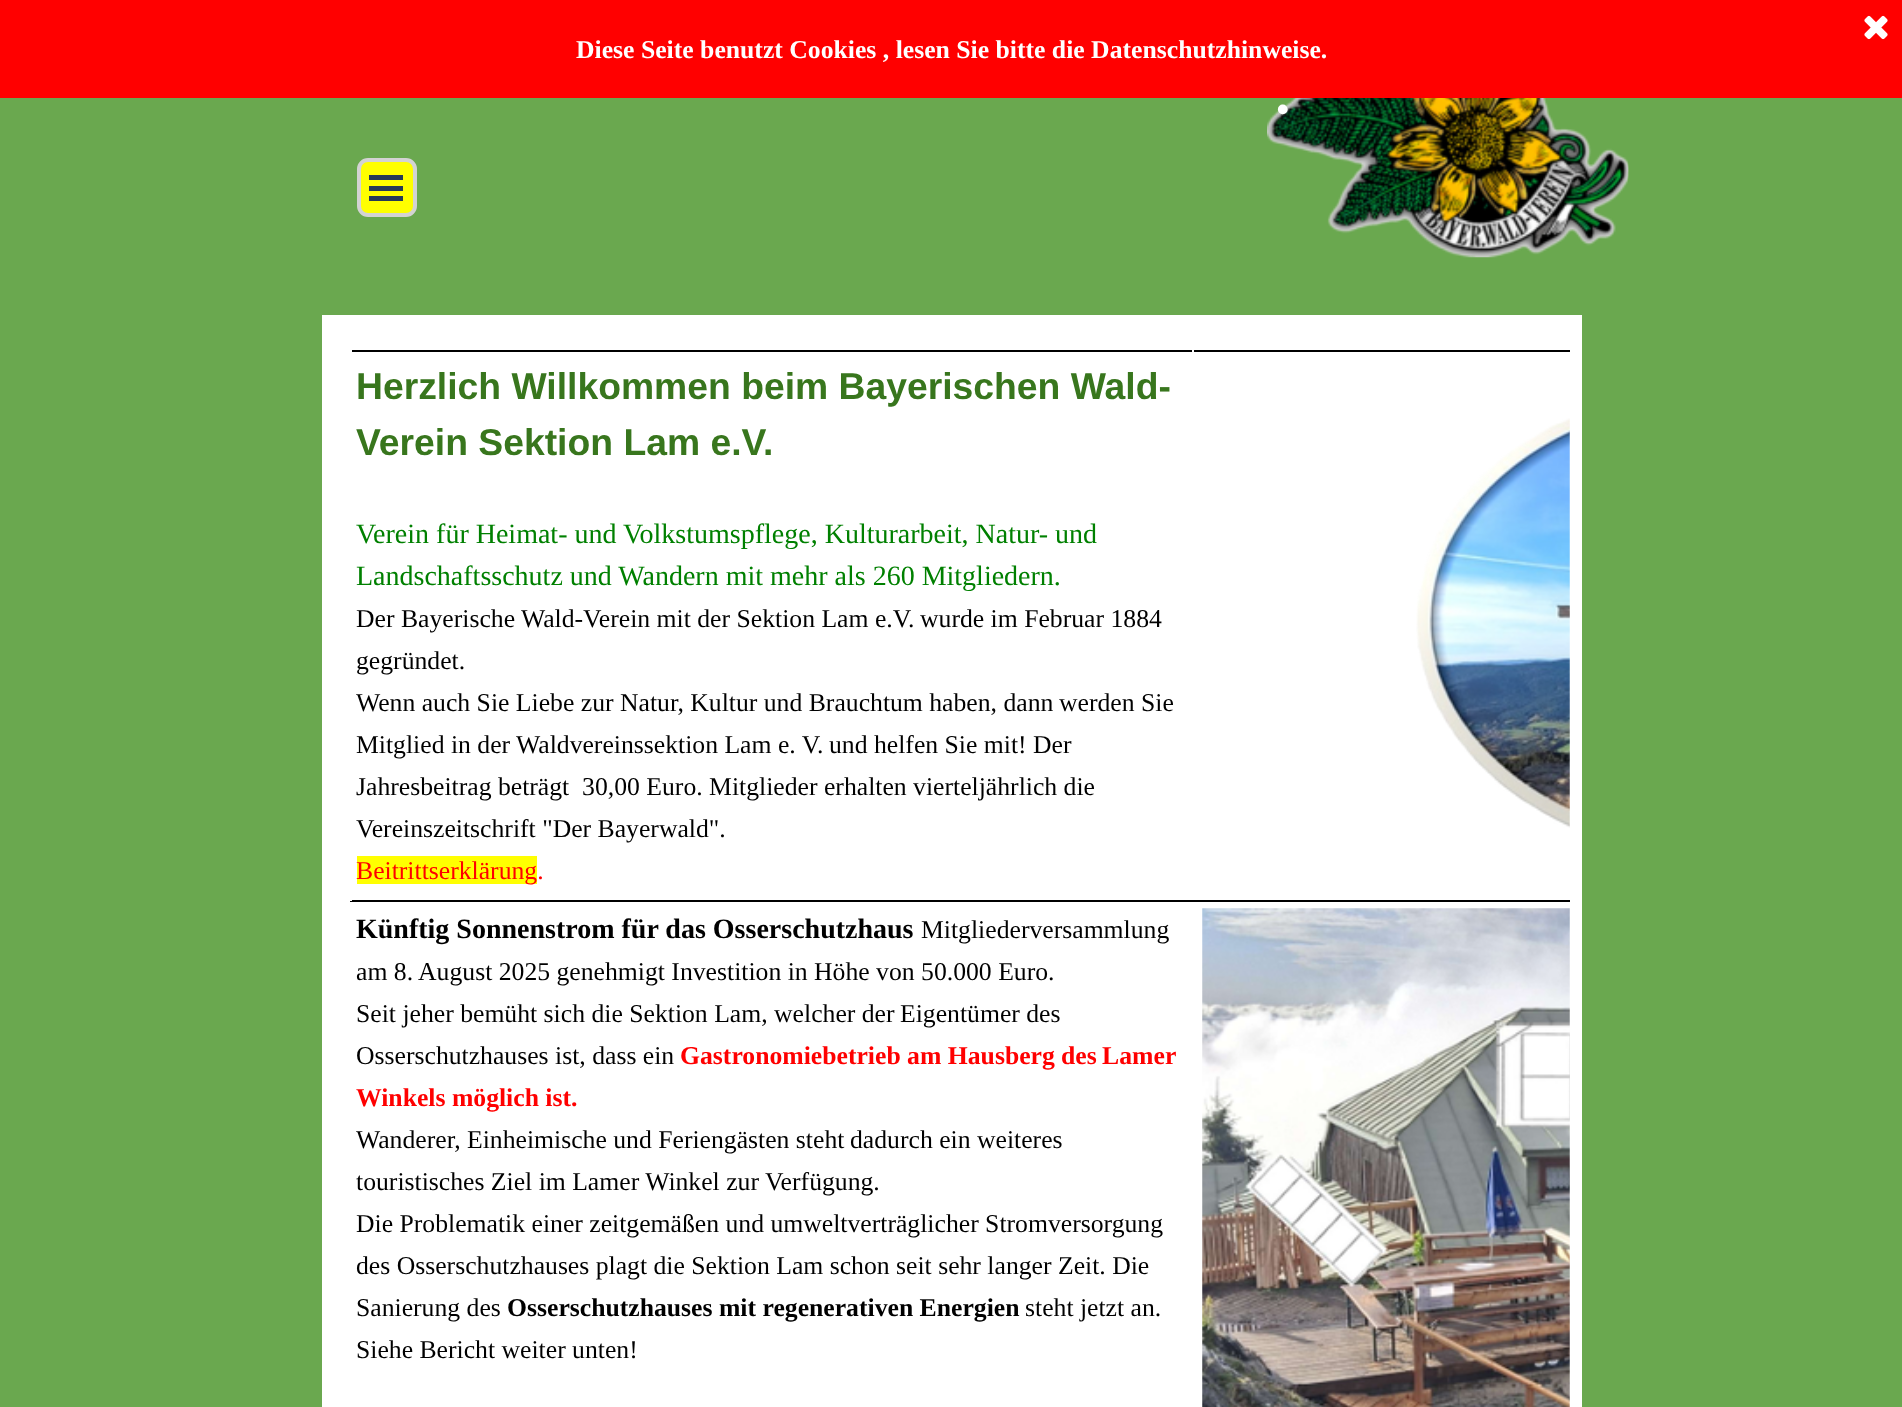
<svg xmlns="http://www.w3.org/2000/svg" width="1902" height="1407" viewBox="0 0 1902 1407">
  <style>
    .t1 { font: bold 25.7px Liberation Serif; fill: #fff; }
    .t2 { font: 61px Lobster; fill: #fff; }
    .t3 { font: bold 37.3px Liberation Sans; fill: #38761d; }
    .t4 { font: 28px Liberation Serif; fill: #008000; }
    .t5 { font: 25.7px Liberation Serif; fill: #000; }
    .t6 { font: 25.7px Liberation Serif; fill: #f00; }
    .t7 { font: bold 28px Liberation Serif; fill: #000; }
    .t8 { font: bold 25.7px Liberation Serif; fill: #f00; }
    .t9 { font: bold 25.7px Liberation Serif; fill: #000; }
  </style>
  <rect width="100%" height="100%" fill="#6aa84f"/>
  <rect x="0" y="0" width="1902" height="98" fill="#f00"/>
  <image x="1864" y="15" width="24" height="25" href="images/1.png"/>
  <text x="576" y="58" class="t1">Diese Seite benutzt Cookies , lesen Sie bitte die Datenschutzhinweise.</text>
  <image x="1267" y="98" width="362" height="160" href="images/2.png"/>
  <text x="1276" y="114" class="t2">.</text>
  <rect x="359" y="160" width="56" height="55" rx="9" fill="#ff0" stroke="#d3d3d3" stroke-width="4"/>
  <rect x="369" y="175" width="34" height="5" fill="#253a58"/>
  <rect x="369" y="186" width="34" height="5" fill="#253a58"/>
  <rect x="369" y="196" width="34" height="5" fill="#253a58"/>
  <rect x="322" y="315" width="1260" height="1092" fill="#fff"/>
  <rect x="350" y="350" width="1220" height="2" fill="#000"/>
  <rect x="1192" y="900" width="378" height="2" fill="#000"/>
  <image x="1416" y="418" width="154" height="410" href="images/3.png"/>
  <rect x="1192" y="350" width="2" height="551" fill="#fff"/>
  <rect x="350" y="900" width="844" height="2" fill="#000"/>
  <rect x="350" y="350" width="2" height="551" fill="#fff"/>
  <text x="356" y="399" class="t3">Herzlich Willkommen beim Bayerischen Wald-</text>
  <text x="356" y="455" class="t3">Verein Sektion Lam e.V.</text>
  <text x="356" y="543" class="t4">Verein für Heimat- und Volkstumspflege, Kulturarbeit, Natur- und</text>
  <text x="356" y="585" class="t4">Landschaftsschutz und Wandern mit mehr als 260 Mitgliedern.</text>
  <text x="356" y="627" class="t5">Der Bayerische Wald-Verein mit der Sektion Lam e.V.</text>
  <text x="920" y="627" class="t5">wurde im Februar 1884</text>
  <text x="356" y="669" class="t5">gegründet.</text>
  <text x="356" y="711" class="t5">Wenn auch Sie Liebe zur Natur, Kultur und Brauchtum haben, dann</text>
  <text x="1059" y="711" class="t5">werden Sie</text>
  <text x="356" y="753" class="t5">Mitglied in der Waldvereinssektion Lam e. V.</text>
  <text x="829" y="753" class="t5">und helfen Sie mit! Der</text>
  <text x="356" y="795" class="t5" xml:space="preserve">Jahresbeitrag beträgt  30,00 Euro. Mitglieder erhalten vierteljährlich die</text>
  <text x="356" y="837" class="t5">Vereinszeitschrift "Der Bayerwald".</text>
  <rect x="357" y="856" width="180" height="28" fill="#ff0"/>
  <text x="356" y="879" class="t6">Beitrittserklärung.</text>
  <text x="356" y="938" class="t7">Künftig Sonnenstrom für das Osserschutzhaus</text>
  <text x="921" y="938" class="t5">Mitgliederversammlung</text>
  <text x="356" y="980" class="t5">am 8. August 2025 genehmigt Investition in Höhe von 50.000 Euro.</text>
  <text x="356" y="1022" class="t5">Seit jeher bemüht sich die Sektion Lam, welcher der</text>
  <text x="900" y="1022" class="t5">Eigentümer des</text>
  <text x="356" y="1064" class="t5">Osserschutzhauses ist, dass ein</text>
  <text x="680" y="1064" class="t8">Gastronomiebetrieb am Hausberg</text>
  <text x="1061" y="1064" word-spacing="-1" class="t8">des Lamer</text>
  <text x="356" y="1106" class="t8">Winkels möglich ist.</text>
  <text x="356" y="1148" class="t5">Wanderer, Einheimische und Feriengästen steht</text>
  <text x="850" y="1148" class="t5">dadurch ein weiteres</text>
  <text x="356" y="1190" class="t5">touristisches Ziel im Lamer Winkel zur Verfügung.</text>
  <text x="356" y="1232" class="t5">Die Problematik einer zeitgemäßen und umweltverträglicher Stromversorgung</text>
  <text x="356" y="1274" class="t5">des Osserschutzhauses plagt die Sektion Lam schon seit sehr langer Zeit. Die</text>
  <text x="356" y="1316" class="t5">Sanierung des</text>
  <text x="507" y="1316" class="t9">Osserschutzhauses mit regenerativen Energien</text>
  <text x="1025" y="1316" class="t5">steht jetzt an.</text>
  <text x="356" y="1358" class="t5">Siehe Bericht weiter unten!</text>
  <image x="1202" y="908" width="368" height="499" href="images/4.png"/>
</svg>
